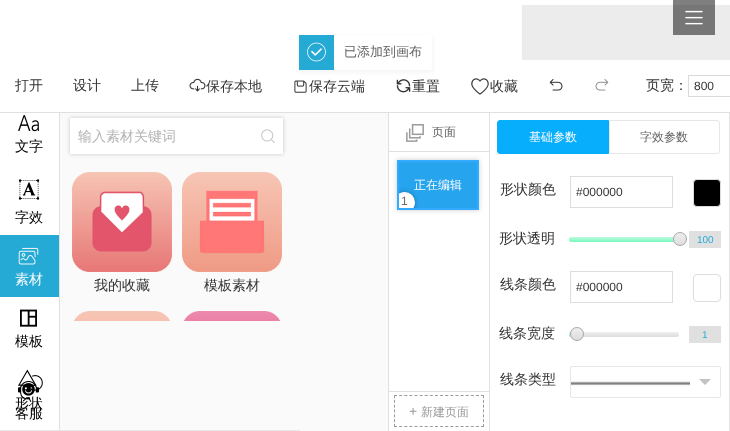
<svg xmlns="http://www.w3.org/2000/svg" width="730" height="431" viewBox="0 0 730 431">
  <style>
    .t1 { font: 500 13px WenQuanYi Zen Hei; fill: #626262; }
    .t2 { font: 500 14px WenQuanYi Zen Hei; fill: #333; }
    .t3 { font: 12px Liberation Sans; fill: #333; }
    .t4 { font: 500 14px WenQuanYi Zen Hei; fill: #000; }
    .t5 { font: 500 14px WenQuanYi Zen Hei; fill: #fdfdfd; }
    .t6 { font: 500 14px WenQuanYi Zen Hei; fill: #b3b3b3; }
    .t7 { font: 500 12px WenQuanYi Zen Hei; fill: #626262; }
    .t8 { font: 500 12px WenQuanYi Zen Hei; fill: #fdfdfd; }
    .t9 { font: 12px Liberation Sans; fill: #6a6a6a; }
    .t10 { font: 14px Liberation Sans; fill: #9b9b9b; }
    .t11 { font: 500 12px WenQuanYi Zen Hei; fill: #9b9b9b; }
    .t12 { font: 10px Liberation Sans; fill: #2aabd6; }
  </style>
  <defs>
    <clipPath id="clip1"><rect x="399" y="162" width="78" height="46"/></clipPath>
    <clipPath id="clip2"><rect x="399" y="162" width="78" height="46"/></clipPath>
    <linearGradient id="g1" gradientUnits="userSpaceOnUse" x1="624" y1="237" x2="624" y2="242"><stop offset="0" stop-color="#bdfade"/><stop offset="1" stop-color="#76fabc"/></linearGradient>
    <clipPath id="clip3"><rect x="673" y="232" width="14" height="14" rx="7"/></clipPath>
    <linearGradient id="g2" gradientUnits="userSpaceOnUse" x1="680" y1="233" x2="680" y2="245"><stop offset="0" stop-color="#eee"/><stop offset="1" stop-color="#ddd"/></linearGradient>
    <linearGradient id="g3" gradientUnits="userSpaceOnUse" x1="624" y1="332" x2="624" y2="337"><stop offset="0" stop-color="#eee"/><stop offset="1" stop-color="#ddd"/></linearGradient>
    <linearGradient id="g4" gradientUnits="userSpaceOnUse" x1="573" y1="332" x2="573" y2="337"><stop offset="0" stop-color="#bdfade"/><stop offset="1" stop-color="#76fabc"/></linearGradient>
    <clipPath id="clip4"><rect x="570" y="327" width="14" height="14" rx="7"/></clipPath>
    <linearGradient id="g5" gradientUnits="userSpaceOnUse" x1="577" y1="328" x2="577" y2="340"><stop offset="0" stop-color="#eee"/><stop offset="1" stop-color="#ddd"/></linearGradient>
  </defs>
  <rect width="100%" height="100%" fill="#fff"/>
  <image x="164" y="5" width="566" height="55" href="images/1.png"/>
  <image x="294" y="80" width="13" height="13" href="images/5.png"/>
  <image x="396" y="79" width="15" height="14" href="images/6.png"/>
  <rect x="299" y="37" width="133" height="35" fill="#0000000d" filter="blur(2.5px)"/>
  <rect x="334" y="35" width="98" height="35" fill="#fff"/>
  <rect x="299" y="35" width="35" height="35" fill="#25aad6"/>
  <image x="307" y="42" width="19" height="20" href="images/2.png"/>
  <text x="344" y="56" class="t1">已添加到画布</text>
  <rect x="673" y="0" width="42" height="35" fill="#00000080"/>
  <image x="685" y="10" width="18" height="15" href="images/3.png"/>
  <rect x="60" y="113" width="329" height="318" fill="#fafafa"/>
  <rect x="388" y="112" width="101" height="319" fill="#0000001a" filter="blur(0.5px)"/>
  <rect x="389" y="111" width="99" height="1" fill="#fff"/>
  <rect x="70" y="118" width="213" height="36" fill="#00000033" filter="blur(2px)"/>
  <rect x="489" y="112" width="1" height="319" fill="#e0e0e0"/>
  <rect x="0" y="112" width="730" height="1" fill="#e0e0e0"/>
  <text x="15" y="90" class="t2">打开</text>
  <text x="73" y="90" class="t2">设计</text>
  <text x="131" y="90" class="t2">上传</text>
  <image x="189" y="78" width="17" height="14" href="images/4.png"/>
  <text x="206" y="91" class="t2">保存本地</text>
  <text x="309" y="91" class="t2">保存云端</text>
  <text x="412" y="91" class="t2">重置</text>
  <image x="471" y="78" width="18" height="17" href="images/7.png"/>
  <text x="490" y="91" class="t2">收藏</text>
  <image x="549" y="79" width="14" height="12" href="images/8.png"/>
  <image x="595" y="79" width="14" height="12" href="images/9.png"/>
  <text x="646" y="90" class="t2">页宽：</text>
  <rect x="688.5" y="75.5" width="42" height="21" fill="none" stroke="#dbdbdb"/>
  <text x="694" y="90" class="t3">800</text>
  <rect x="59" y="113" width="1" height="318" fill="#e0e0e0"/>
  <image x="18" y="115" width="21" height="17" href="images/10.png"/>
  <text x="15" y="151" class="t4">文字</text>
  <image x="18" y="179" width="22" height="21" href="images/11.png"/>
  <text x="15" y="222" class="t4">字效</text>
  <rect x="0" y="235" width="59" height="62" fill="#25aad6"/>
  <image x="18" y="247" width="21" height="18" href="images/12.png"/>
  <text x="15" y="284" class="t5">素材</text>
  <image x="20" y="309" width="17" height="18" href="images/13.png"/>
  <text x="15" y="346" class="t4">模板</text>
  <image x="18" y="369" width="25" height="22" href="images/14.png"/>
  <text x="15" y="408" class="t4">形状</text>
  <image x="18" y="380" width="21" height="20" href="images/15.png"/>
  <text x="15" y="418" class="t4">客服</text>
  <rect x="70" y="118" width="213" height="36" fill="#fff"/>
  <text x="78" y="141" class="t6">输入素材关键词</text>
  <image x="261" y="129" width="14" height="14" href="images/16.png"/>
  <image x="72" y="172" width="100" height="100" href="images/17.png"/>
  <text x="94" y="290" class="t2">我的收藏</text>
  <image x="182" y="172" width="100" height="100" href="images/18.png"/>
  <text x="204" y="290" class="t2">模板素材</text>
  <image x="74" y="311" width="96" height="10" href="images/19.png"/>
  <image x="184" y="311" width="96" height="10" href="images/20.png"/>
  <rect x="0" y="430" width="300" height="1" fill="#e8e8e8"/>
  <rect x="729" y="113" width="1" height="318" fill="#e5e5e5"/>
  <rect x="389" y="113" width="100" height="38" fill="#fff"/>
  <rect x="389" y="151" width="100" height="1" fill="#e0e0e0"/>
  <image x="406" y="124" width="18" height="18" href="images/21.png"/>
  <text x="432" y="136" class="t7">页面</text>
  <rect x="389" y="152" width="100" height="239" fill="#fff"/>
  <rect x="397" y="160" width="82" height="50" fill="#00000033" filter="blur(2.5px)"/>
  <rect x="398" y="161" width="80" height="48" fill="none" stroke="#32abff" stroke-width="2"/>
  <rect x="399" y="162" width="78" height="46" fill="#26a4ee"/>
  <text x="414" y="189" class="t8">正在编辑</text>
  <g clip-path="url(#clip1)">
    <rect x="394" y="192" width="21" height="21" rx="10.5" fill="#0000004d" filter="blur(2.5px)"/>
  </g>
  <g clip-path="url(#clip2)">
    <circle cx="404.5" cy="202.5" r="10.5" fill="#fff"/>
  </g>
  <text x="401" y="205" class="t9">1</text>
  <rect x="389" y="392" width="100" height="39" fill="#fff"/>
  <rect x="389" y="391" width="100" height="1" fill="#e0e0e0"/>
  <path d="M394 395.5H484" fill="none" stroke="#9b9b9b" stroke-dasharray="3 2.12"/>
  <path d="M483.5 395V427" fill="none" stroke="#9b9b9b" stroke-dasharray="3 1.83"/>
  <path d="M394 426.5H484" fill="none" stroke="#9b9b9b" stroke-dasharray="3 2.12"/>
  <path d="M394.5 395V427" fill="none" stroke="#9b9b9b" stroke-dasharray="3 1.83"/>
  <text x="409" y="416" class="t10">+</text>
  <text x="421" y="416" class="t11">新建页面</text>
  <path d="M500 120.5H608.5V153.5H500C498.5 153.5 497.5 152.5 497.5 151V123C497.5 121.5 498.5 120.5 500 120.5Z" fill="#07aefc" stroke="#07aefc"/>
  <text x="529" y="141" class="t8">基础参数</text>
  <path d="M609.5 120.5H717C718.5 120.5 719.5 121.5 719.5 123V151C719.5 152.5 718.5 153.5 717 153.5H609.5Z" fill="none" stroke="#e7e7e7"/>
  <text x="640" y="141" class="t7">字效参数</text>
  <text x="500" y="194" class="t2">形状颜色</text>
  <rect x="570.5" y="176.5" width="102" height="31" fill="none" stroke="#ddd"/>
  <text x="576" y="196" class="t3">#000000</text>
  <rect x="693.5" y="179.5" width="27" height="27" rx="3.5" fill="#000" stroke="#ddd"/>
  <text x="499" y="243" class="t2">形状透明</text>
  <rect x="569" y="237" width="110" height="5" rx="2" fill="url(#g1)"/>
  <g clip-path="url(#clip3)">
    <rect x="673" y="233" width="14" height="12" fill="url(#g2)"/>
  </g>
  <circle cx="680" cy="239" r="6.5" fill="none" stroke="#aaa"/>
  <rect x="689" y="231" width="32" height="17" fill="#e0e0e0"/>
  <text x="697" y="243" class="t12">100</text>
  <text x="500" y="289" class="t2">线条颜色</text>
  <rect x="570.5" y="271.5" width="102" height="31" fill="none" stroke="#ddd"/>
  <text x="576" y="291" class="t3">#000000</text>
  <rect x="693.5" y="274.5" width="27" height="27" rx="3.5" fill="none" stroke="#ddd"/>
  <text x="499" y="338" class="t2">线条宽度</text>
  <rect x="569" y="332" width="110" height="5" rx="2" fill="url(#g3)"/>
  <rect x="569" y="332" width="7" height="5" rx="2" fill="url(#g4)"/>
  <g clip-path="url(#clip4)">
    <rect x="570" y="328" width="14" height="12" fill="url(#g5)"/>
  </g>
  <circle cx="577" cy="334" r="6.5" fill="none" stroke="#aaa"/>
  <rect x="689" y="326" width="32" height="17" fill="#e0e0e0"/>
  <text x="702" y="338" class="t12">1</text>
  <text x="500" y="384" class="t2">线条类型</text>
  <image x="571" y="381" width="119" height="5" href="images/22.png"/>
  <rect x="570.5" y="366.5" width="150" height="31" rx="1.5" fill="none" stroke="#e6e6e6"/>
  <path d="M699 379H711L705 385Z" fill="#c2c2c2"/>
</svg>
